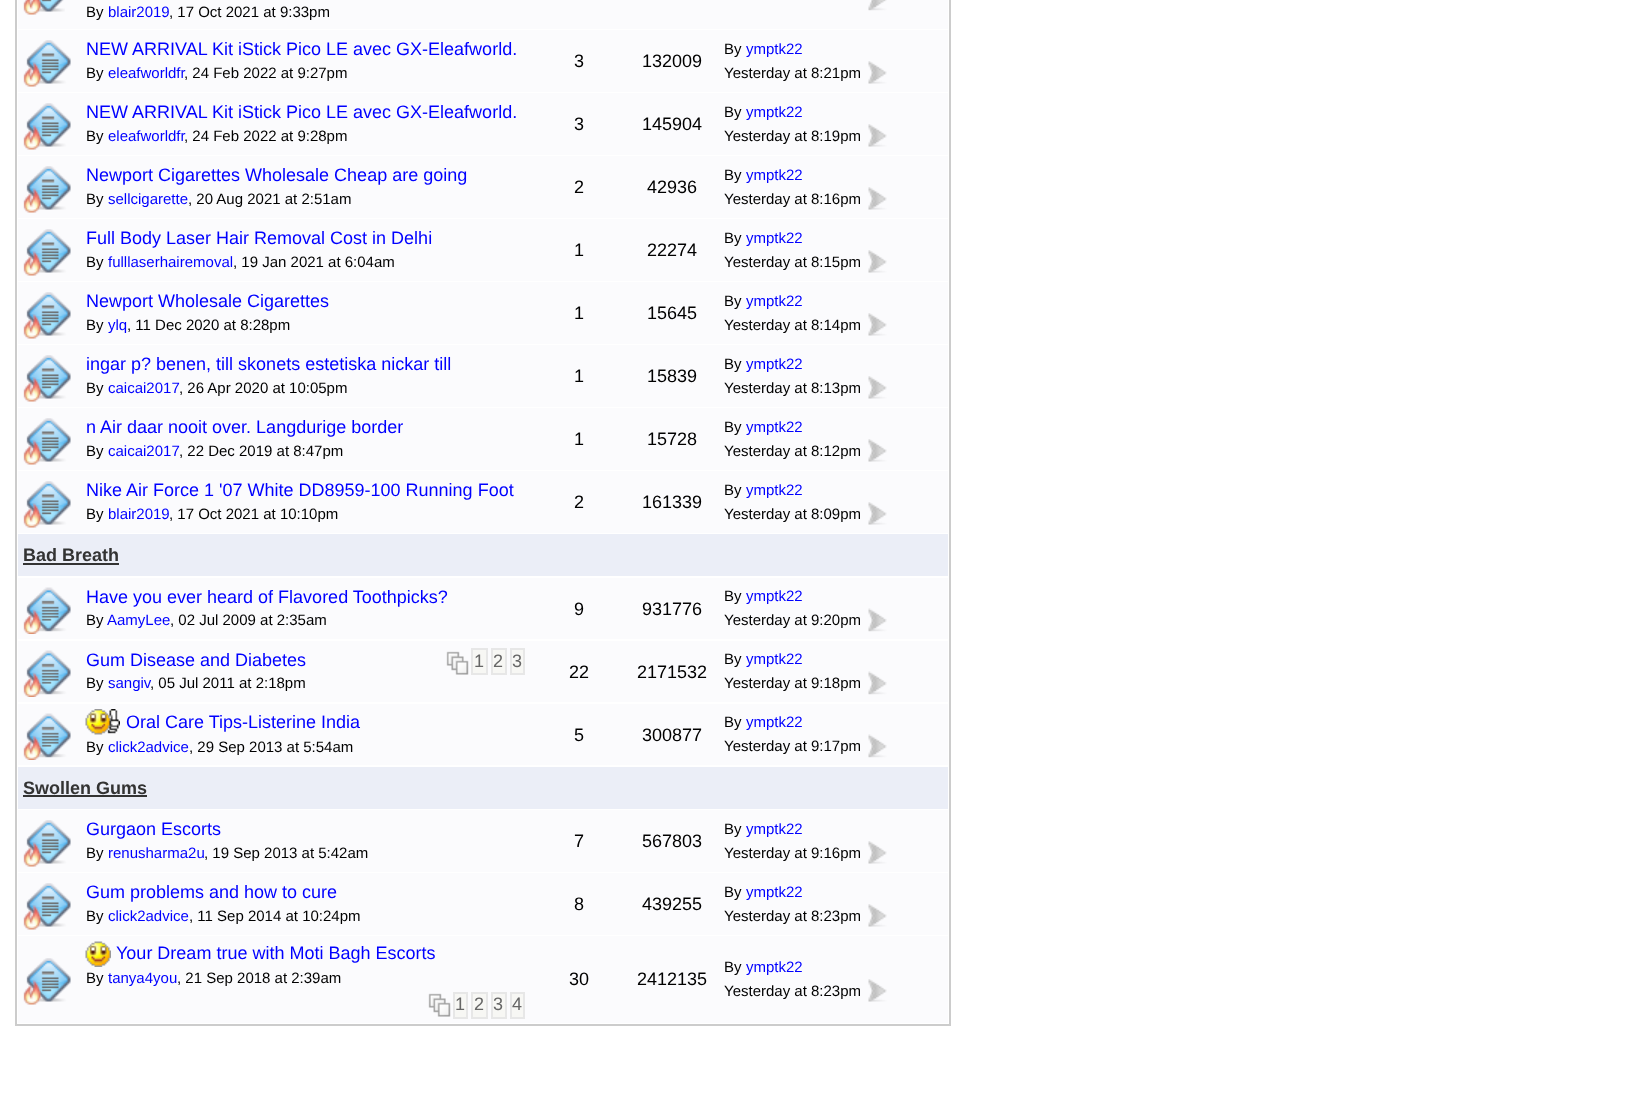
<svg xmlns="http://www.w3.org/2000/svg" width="1625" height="1096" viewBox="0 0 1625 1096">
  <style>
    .t1 { font: 15px Liberation Sans; fill: #000; }
    .t2 { font: 15px Liberation Sans; fill: #00f; }
    .t3 { font: 18px Liberation Sans; fill: #00f; }
    .t4 { font: 18px Liberation Sans; fill: #000; }
    .t5 { font: bold 18px Liberation Sans; fill: #333; }
    .t6 { font: 18px Liberation Sans; fill: #666; }
  </style>
  <rect width="100%" height="100%" fill="#fff"/>
  <rect x="16" y="-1" width="934" height="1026" fill="none" stroke="#ccc" stroke-width="2"/>
  <rect x="18" y="0" width="930" height="29" fill="#fbfbfd"/>
  <image x="35" y="0" width="30" height="12" href="images/1.png"/>
  <image x="23" y="0" width="18" height="15" href="images/2.png"/>
  <text x="86" y="17" class="t1">By</text>
  <text x="108" y="17" class="t2">blair2019</text>
  <text x="169" y="17" class="t1">, 17 Oct 2021 at 9:33pm</text>
  <image x="868" y="0" width="19" height="11" href="images/3.png"/>
  <rect x="18" y="30" width="930" height="62" fill="#fbfbfd"/>
  <image x="26" y="40" width="45" height="44" href="images/4.png"/>
  <image x="23" y="62" width="18" height="25" href="images/5.png"/>
  <text x="86" y="55" class="t3">NEW ARRIVAL Kit iStick Pico LE avec GX-Eleafworld.</text>
  <text x="86" y="78" class="t1">By</text>
  <text x="108" y="78" class="t2">eleafworldfr</text>
  <text x="184" y="78" class="t1">, 24 Feb 2022 at 9:27pm</text>
  <text x="574" y="67" class="t4">3</text>
  <text x="642" y="67" class="t4">132009</text>
  <text x="724" y="54" class="t1">By</text>
  <text x="746" y="54" class="t2">ymptk22</text>
  <text x="724" y="78" class="t1">Yesterday at 8:21pm</text>
  <image x="868" y="61" width="19" height="23" href="images/6.png"/>
  <rect x="18" y="93" width="930" height="62" fill="#fbfbfd"/>
  <image x="26" y="103" width="45" height="44" href="images/4.png"/>
  <image x="23" y="125" width="18" height="25" href="images/5.png"/>
  <text x="86" y="118" class="t3">NEW ARRIVAL Kit iStick Pico LE avec GX-Eleafworld.</text>
  <text x="86" y="141" class="t1">By</text>
  <text x="108" y="141" class="t2">eleafworldfr</text>
  <text x="184" y="141" class="t1">, 24 Feb 2022 at 9:28pm</text>
  <text x="574" y="130" class="t4">3</text>
  <text x="642" y="130" class="t4">145904</text>
  <text x="724" y="117" class="t1">By</text>
  <text x="746" y="117" class="t2">ymptk22</text>
  <text x="724" y="141" class="t1">Yesterday at 8:19pm</text>
  <image x="868" y="124" width="19" height="23" href="images/6.png"/>
  <rect x="18" y="156" width="930" height="62" fill="#fbfbfd"/>
  <image x="26" y="166" width="45" height="44" href="images/4.png"/>
  <image x="23" y="188" width="18" height="25" href="images/5.png"/>
  <text x="86" y="181" class="t3">Newport Cigarettes Wholesale Cheap are going</text>
  <text x="86" y="204" class="t1">By</text>
  <text x="108" y="204" class="t2">sellcigarette</text>
  <text x="188" y="204" class="t1">, 20 Aug 2021 at 2:51am</text>
  <text x="574" y="193" class="t4">2</text>
  <text x="647" y="193" class="t4">42936</text>
  <text x="724" y="180" class="t1">By</text>
  <text x="746" y="180" class="t2">ymptk22</text>
  <text x="724" y="204" class="t1">Yesterday at 8:16pm</text>
  <image x="868" y="187" width="19" height="23" href="images/6.png"/>
  <rect x="18" y="219" width="930" height="62" fill="#fbfbfd"/>
  <image x="26" y="229" width="45" height="44" href="images/4.png"/>
  <image x="23" y="251" width="18" height="25" href="images/5.png"/>
  <text x="86" y="244" class="t3">Full Body Laser Hair Removal Cost in Delhi</text>
  <text x="86" y="267" class="t1">By</text>
  <text x="108" y="267" class="t2">fulllaserhairemoval</text>
  <text x="233" y="267" class="t1">, 19 Jan 2021 at 6:04am</text>
  <text x="574" y="256" class="t4">1</text>
  <text x="647" y="256" class="t4">22274</text>
  <text x="724" y="243" class="t1">By</text>
  <text x="746" y="243" class="t2">ymptk22</text>
  <text x="724" y="267" class="t1">Yesterday at 8:15pm</text>
  <image x="868" y="250" width="19" height="23" href="images/6.png"/>
  <rect x="18" y="282" width="930" height="62" fill="#fbfbfd"/>
  <image x="26" y="292" width="45" height="44" href="images/4.png"/>
  <image x="23" y="314" width="18" height="25" href="images/5.png"/>
  <text x="86" y="307" class="t3">Newport Wholesale Cigarettes</text>
  <text x="86" y="330" class="t1">By</text>
  <text x="108" y="330" class="t2">ylq</text>
  <text x="127" y="330" class="t1">, 11 Dec 2020 at 8:28pm</text>
  <text x="574" y="319" class="t4">1</text>
  <text x="647" y="319" class="t4">15645</text>
  <text x="724" y="306" class="t1">By</text>
  <text x="746" y="306" class="t2">ymptk22</text>
  <text x="724" y="330" class="t1">Yesterday at 8:14pm</text>
  <image x="868" y="313" width="19" height="23" href="images/6.png"/>
  <rect x="18" y="345" width="930" height="62" fill="#fbfbfd"/>
  <image x="26" y="355" width="45" height="44" href="images/4.png"/>
  <image x="23" y="377" width="18" height="25" href="images/5.png"/>
  <text x="86" y="370" class="t3">ingar p? benen, till skonets estetiska nickar till</text>
  <text x="86" y="393" class="t1">By</text>
  <text x="108" y="393" class="t2">caicai2017</text>
  <text x="179" y="393" class="t1">, 26 Apr 2020 at 10:05pm</text>
  <text x="574" y="382" class="t4">1</text>
  <text x="647" y="382" class="t4">15839</text>
  <text x="724" y="369" class="t1">By</text>
  <text x="746" y="369" class="t2">ymptk22</text>
  <text x="724" y="393" class="t1">Yesterday at 8:13pm</text>
  <image x="868" y="376" width="19" height="23" href="images/6.png"/>
  <rect x="18" y="408" width="930" height="62" fill="#fbfbfd"/>
  <image x="26" y="418" width="45" height="44" href="images/4.png"/>
  <image x="23" y="440" width="18" height="25" href="images/5.png"/>
  <text x="86" y="433" class="t3">n Air daar nooit over. Langdurige border</text>
  <text x="86" y="456" class="t1">By</text>
  <text x="108" y="456" class="t2">caicai2017</text>
  <text x="179" y="456" class="t1">, 22 Dec 2019 at 8:47pm</text>
  <text x="574" y="445" class="t4">1</text>
  <text x="647" y="445" class="t4">15728</text>
  <text x="724" y="432" class="t1">By</text>
  <text x="746" y="432" class="t2">ymptk22</text>
  <text x="724" y="456" class="t1">Yesterday at 8:12pm</text>
  <image x="868" y="439" width="19" height="23" href="images/6.png"/>
  <rect x="18" y="471" width="930" height="62" fill="#fbfbfd"/>
  <image x="26" y="481" width="45" height="44" href="images/4.png"/>
  <image x="23" y="503" width="18" height="25" href="images/5.png"/>
  <text x="86" y="496" class="t3">Nike Air Force 1 '07 White DD8959-100 Running Foot</text>
  <text x="86" y="519" class="t1">By</text>
  <text x="108" y="519" class="t2">blair2019</text>
  <text x="169" y="519" class="t1">, 17 Oct 2021 at 10:10pm</text>
  <text x="574" y="508" class="t4">2</text>
  <text x="642" y="508" class="t4">161339</text>
  <text x="724" y="495" class="t1">By</text>
  <text x="746" y="495" class="t2">ymptk22</text>
  <text x="724" y="519" class="t1">Yesterday at 8:09pm</text>
  <image x="868" y="502" width="19" height="23" href="images/6.png"/>
  <rect x="18" y="534" width="930" height="42" fill="#ebeef7"/>
  <text x="23" y="561" class="t5">Bad Breath</text>
  <rect x="23" y="563" width="96" height="2" fill="#333"/>
  <rect x="18" y="578" width="930" height="61" fill="#fbfbfd"/>
  <image x="26" y="587" width="45" height="45" href="images/7.png"/>
  <image x="23" y="609" width="18" height="25" href="images/8.png"/>
  <text x="86" y="603" class="t3">Have you ever heard of Flavored Toothpicks?</text>
  <text x="86" y="625" class="t1">By</text>
  <text x="107" y="625" class="t2">AamyLee</text>
  <text x="170" y="625" class="t1">, 02 Jul 2009 at 2:35am</text>
  <text x="574" y="615" class="t4">9</text>
  <text x="642" y="615" class="t4">931776</text>
  <text x="724" y="601" class="t1">By</text>
  <text x="746" y="601" class="t2">ymptk22</text>
  <text x="724" y="625" class="t1">Yesterday at 9:20pm</text>
  <image x="868" y="608" width="19" height="24" href="images/9.png"/>
  <rect x="18" y="641" width="930" height="61" fill="#fbfbfd"/>
  <image x="26" y="650" width="45" height="45" href="images/7.png"/>
  <image x="23" y="672" width="18" height="25" href="images/8.png"/>
  <text x="86" y="666" class="t3">Gum Disease and Diabetes</text>
  <text x="86" y="688" class="t1">By</text>
  <text x="108" y="688" class="t2">sangiv</text>
  <text x="150" y="688" class="t1">, 05 Jul 2011 at 2:18pm</text>
  <image x="446" y="651" width="23" height="24" href="images/10.png"/>
  <rect x="472" y="649" width="15" height="25" fill="#f7f7f4" stroke="#e7e7e7" stroke-width="2"/>
  <text x="474" y="667" class="t6">1</text>
  <rect x="492" y="649" width="14" height="25" fill="#f7f7f4" stroke="#e7e7e7" stroke-width="2"/>
  <text x="493" y="667" class="t6">2</text>
  <rect x="511" y="649" width="13" height="25" fill="#f7f7f4" stroke="#e7e7e7" stroke-width="2"/>
  <text x="512" y="667" class="t6">3</text>
  <text x="569" y="678" class="t4">22</text>
  <text x="637" y="678" class="t4">2171532</text>
  <text x="724" y="664" class="t1">By</text>
  <text x="746" y="664" class="t2">ymptk22</text>
  <text x="724" y="688" class="t1">Yesterday at 9:18pm</text>
  <image x="868" y="671" width="19" height="24" href="images/9.png"/>
  <rect x="18" y="704" width="930" height="61" fill="#fbfbfd"/>
  <image x="26" y="713" width="45" height="45" href="images/7.png"/>
  <image x="23" y="735" width="18" height="25" href="images/8.png"/>
  <image x="85" y="709" width="35" height="26" href="images/11.png"/>
  <text x="126" y="728" class="t3">Oral Care Tips-Listerine India</text>
  <text x="86" y="752" class="t1">By</text>
  <text x="108" y="752" class="t2">click2advice</text>
  <text x="189" y="752" class="t1">, 29 Sep 2013 at 5:54am</text>
  <text x="574" y="741" class="t4">5</text>
  <text x="642" y="741" class="t4">300877</text>
  <text x="724" y="727" class="t1">By</text>
  <text x="746" y="727" class="t2">ymptk22</text>
  <text x="724" y="751" class="t1">Yesterday at 9:17pm</text>
  <image x="868" y="734" width="19" height="24" href="images/9.png"/>
  <rect x="18" y="767" width="930" height="42" fill="#ebeef7"/>
  <text x="23" y="794" class="t5">Swollen Gums</text>
  <rect x="23" y="795" width="124" height="2" fill="#333"/>
  <rect x="18" y="810" width="930" height="62" fill="#fbfbfd"/>
  <image x="26" y="820" width="45" height="44" href="images/4.png"/>
  <image x="23" y="842" width="18" height="25" href="images/5.png"/>
  <text x="86" y="835" class="t3">Gurgaon Escorts</text>
  <text x="86" y="858" class="t1">By</text>
  <text x="108" y="858" class="t2">renusharma2u</text>
  <text x="204" y="858" class="t1">, 19 Sep 2013 at 5:42am</text>
  <text x="574" y="847" class="t4">7</text>
  <text x="642" y="847" class="t4">567803</text>
  <text x="724" y="834" class="t1">By</text>
  <text x="746" y="834" class="t2">ymptk22</text>
  <text x="724" y="858" class="t1">Yesterday at 9:16pm</text>
  <image x="868" y="841" width="19" height="23" href="images/6.png"/>
  <rect x="18" y="873" width="930" height="62" fill="#fbfbfd"/>
  <image x="26" y="883" width="45" height="44" href="images/4.png"/>
  <image x="23" y="905" width="18" height="25" href="images/5.png"/>
  <text x="86" y="898" class="t3">Gum problems and how to cure</text>
  <text x="86" y="921" class="t1">By</text>
  <text x="108" y="921" class="t2">click2advice</text>
  <text x="189" y="921" class="t1">, 11 Sep 2014 at 10:24pm</text>
  <text x="574" y="910" class="t4">8</text>
  <text x="642" y="910" class="t4">439255</text>
  <text x="724" y="897" class="t1">By</text>
  <text x="746" y="897" class="t2">ymptk22</text>
  <text x="724" y="921" class="t1">Yesterday at 8:23pm</text>
  <image x="868" y="904" width="19" height="23" href="images/6.png"/>
  <rect x="18" y="936" width="930" height="87" fill="#fbfbfd"/>
  <image x="26" y="958" width="45" height="44" href="images/4.png"/>
  <image x="23" y="980" width="18" height="25" href="images/5.png"/>
  <image x="85" y="941" width="26" height="26" href="images/12.png"/>
  <text x="116" y="959" class="t3">Your Dream true with Moti Bagh Escorts</text>
  <text x="86" y="983" class="t1">By</text>
  <text x="108" y="983" class="t2">tanya4you</text>
  <text x="177" y="983" class="t1">, 21 Sep 2018 at 2:39am</text>
  <image x="428" y="993" width="23" height="24" href="images/13.png"/>
  <rect x="454" y="993" width="13" height="25" fill="#f7f7f4" stroke="#e7e7e7" stroke-width="2"/>
  <text x="455" y="1010" class="t6">1</text>
  <rect x="472" y="993" width="15" height="25" fill="#f7f7f4" stroke="#e7e7e7" stroke-width="2"/>
  <text x="474" y="1010" class="t6">2</text>
  <rect x="492" y="993" width="14" height="25" fill="#f7f7f4" stroke="#e7e7e7" stroke-width="2"/>
  <text x="493" y="1010" class="t6">3</text>
  <rect x="511" y="993" width="13" height="25" fill="#f7f7f4" stroke="#e7e7e7" stroke-width="2"/>
  <text x="512" y="1010" class="t6">4</text>
  <text x="569" y="985" class="t4">30</text>
  <text x="637" y="985" class="t4">2412135</text>
  <text x="724" y="972" class="t1">By</text>
  <text x="746" y="972" class="t2">ymptk22</text>
  <text x="724" y="996" class="t1">Yesterday at 8:23pm</text>
  <image x="868" y="979" width="19" height="23" href="images/6.png"/>
</svg>
